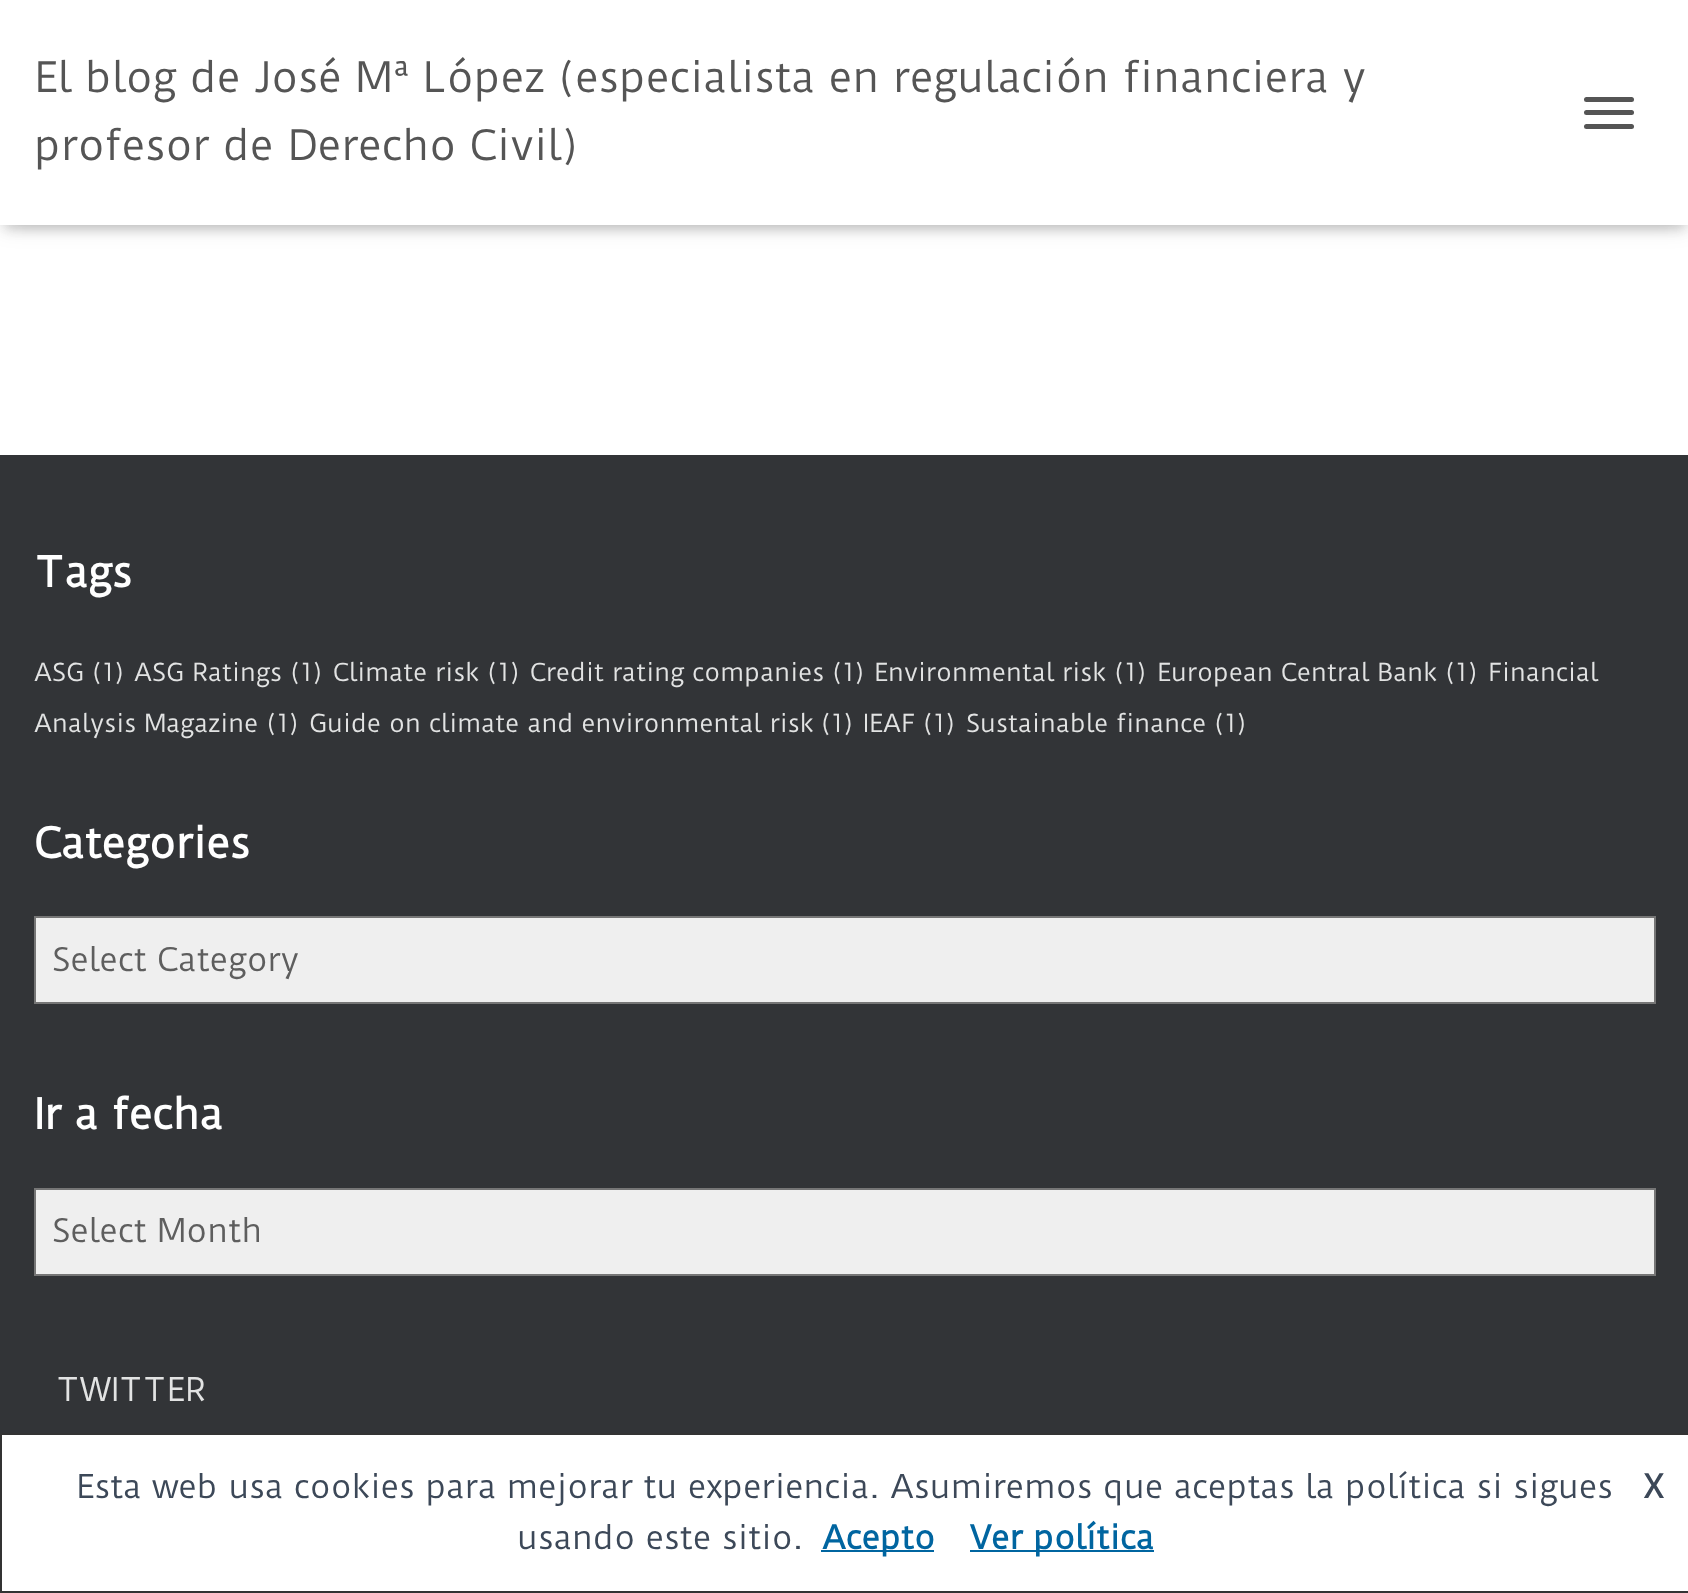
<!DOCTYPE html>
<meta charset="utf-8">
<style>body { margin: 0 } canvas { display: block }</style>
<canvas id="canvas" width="1688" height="1593"></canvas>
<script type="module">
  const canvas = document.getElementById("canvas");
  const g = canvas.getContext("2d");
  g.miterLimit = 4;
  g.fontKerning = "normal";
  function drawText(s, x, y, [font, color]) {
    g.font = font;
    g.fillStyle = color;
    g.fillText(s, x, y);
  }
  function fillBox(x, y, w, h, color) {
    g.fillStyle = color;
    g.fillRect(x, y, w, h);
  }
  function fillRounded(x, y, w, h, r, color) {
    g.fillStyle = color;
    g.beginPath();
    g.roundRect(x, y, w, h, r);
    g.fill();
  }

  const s1 = ["40.5px Duru Sans", "#555555"];
  const s2 = ["bold 40.5px Duru Sans", "#FFFFFF"];
  const s3 = ["24px Duru Sans", "#E2E3E3"];
  const s4 = ["31.5px Duru Sans", "#5E5E5E"];
  const s5 = ["31.5px Duru Sans", "#E2E3E3"];
  const s6 = ["31.5px Duru Sans", "#3C4858"];
  const s7 = ["bold 31.5px Duru Sans", "#3C4858"];
  const s8 = ["bold 31.5px Duru Sans", "#0065A0"];

  fillBox(0, 0, 1688, 1593, "#323437");
  fillBox(0, 225, 1688, 230, "#FFFFFF");
  g.fillStyle = "rgba(0, 0, 0, 0.1)";
  g.filter = "blur(5.5px)";
  g.beginPath();
  g.rect(5, 14, 1680, 216);
  g.fill();
  g.filter = "none";
  g.fillStyle = "rgba(0, 0, 0, 0.12)";
  g.filter = "blur(11px)";
  g.beginPath();
  g.rect(0, 2, 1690, 225);
  g.fill();
  g.filter = "none";
  g.fillStyle = "rgba(0, 0, 0, 0.42)";
  g.filter = "blur(11px)";
  g.beginPath();
  g.rect(14, 16, 1662, 198);
  g.fill();
  g.filter = "none";
  fillBox(0, 0, 1688, 225, "#FFFFFF");
  drawText("El blog de José Mª López (especialista en regulación financiera y", 34, 92, s1);
  drawText("profesor de Derecho Civil)", 34, 160, s1);
  fillRounded(1584, 97, 50, 5, 2.5, "#555555");
  fillRounded(1584, 110, 50, 5, 2.5, "#555555");
  fillRounded(1584, 124, 50, 5, 2.5, "#555555");
  drawText("Tags", 34, 587, s2);
  drawText("ASG (1)", 34, 681, s3);
  drawText("ASG Ratings (1)", 134, 681, s3);
  drawText("Climate risk (1)", 333, 681, s3);
  drawText("Credit rating companies (1)", 530, 681, s3);
  drawText("Environmental risk (1)", 874, 681, s3);
  drawText("European Central Bank (1)", 1157, 681, s3);
  drawText("Financial", 1488, 681, s3);
  drawText("Analysis Magazine (1)", 34, 732, s3);
  drawText("Guide on climate and environmental risk", 309, 732, s3);
  drawText("(1)", 821, 732, s3);
  drawText("IEAF (1)", 863, 732, s3);
  drawText("Sustainable finance (1)", 966, 732, s3);
  drawText("Categories", 34, 858, s2);
  g.fillStyle = "#EFEFEF";
  g.beginPath();
  g.rect(35, 917, 1620, 86);
  g.fill();
  g.strokeStyle = "#767676";
  g.lineWidth = 2;
  g.stroke();
  drawText("Select Category", 52, 971, s4);
  drawText("Ir a fecha", 34, 1129, s2);
  g.fillStyle = "#EFEFEF";
  g.beginPath();
  g.rect(35, 1189, 1620, 86);
  g.fill();
  g.stroke();
  drawText("Select Month", 52, 1242, s4);
  drawText("TWITTER", 56, 1401, s5);
  g.fillStyle = "#FFFFFF";
  g.beginPath();
  g.rect(1, 1434, 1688, 158);
  g.fill();
  g.strokeStyle = "#333333";
  g.stroke();
  drawText("Esta web usa cookies para mejorar tu experiencia. Asumiremos que aceptas la política si sigues", 76, 1498, s6);
  drawText("X", 1643, 1498, s7);
  drawText("usando este sitio.", 517, 1549, s6);
  fillBox(821, 1550, 113, 2, "#0065A0");
  drawText("Acepto", 822, 1549, s8);
  fillBox(970, 1550, 184, 2, "#0065A0");
  drawText("Ver política", 970, 1549, s8);
</script>
